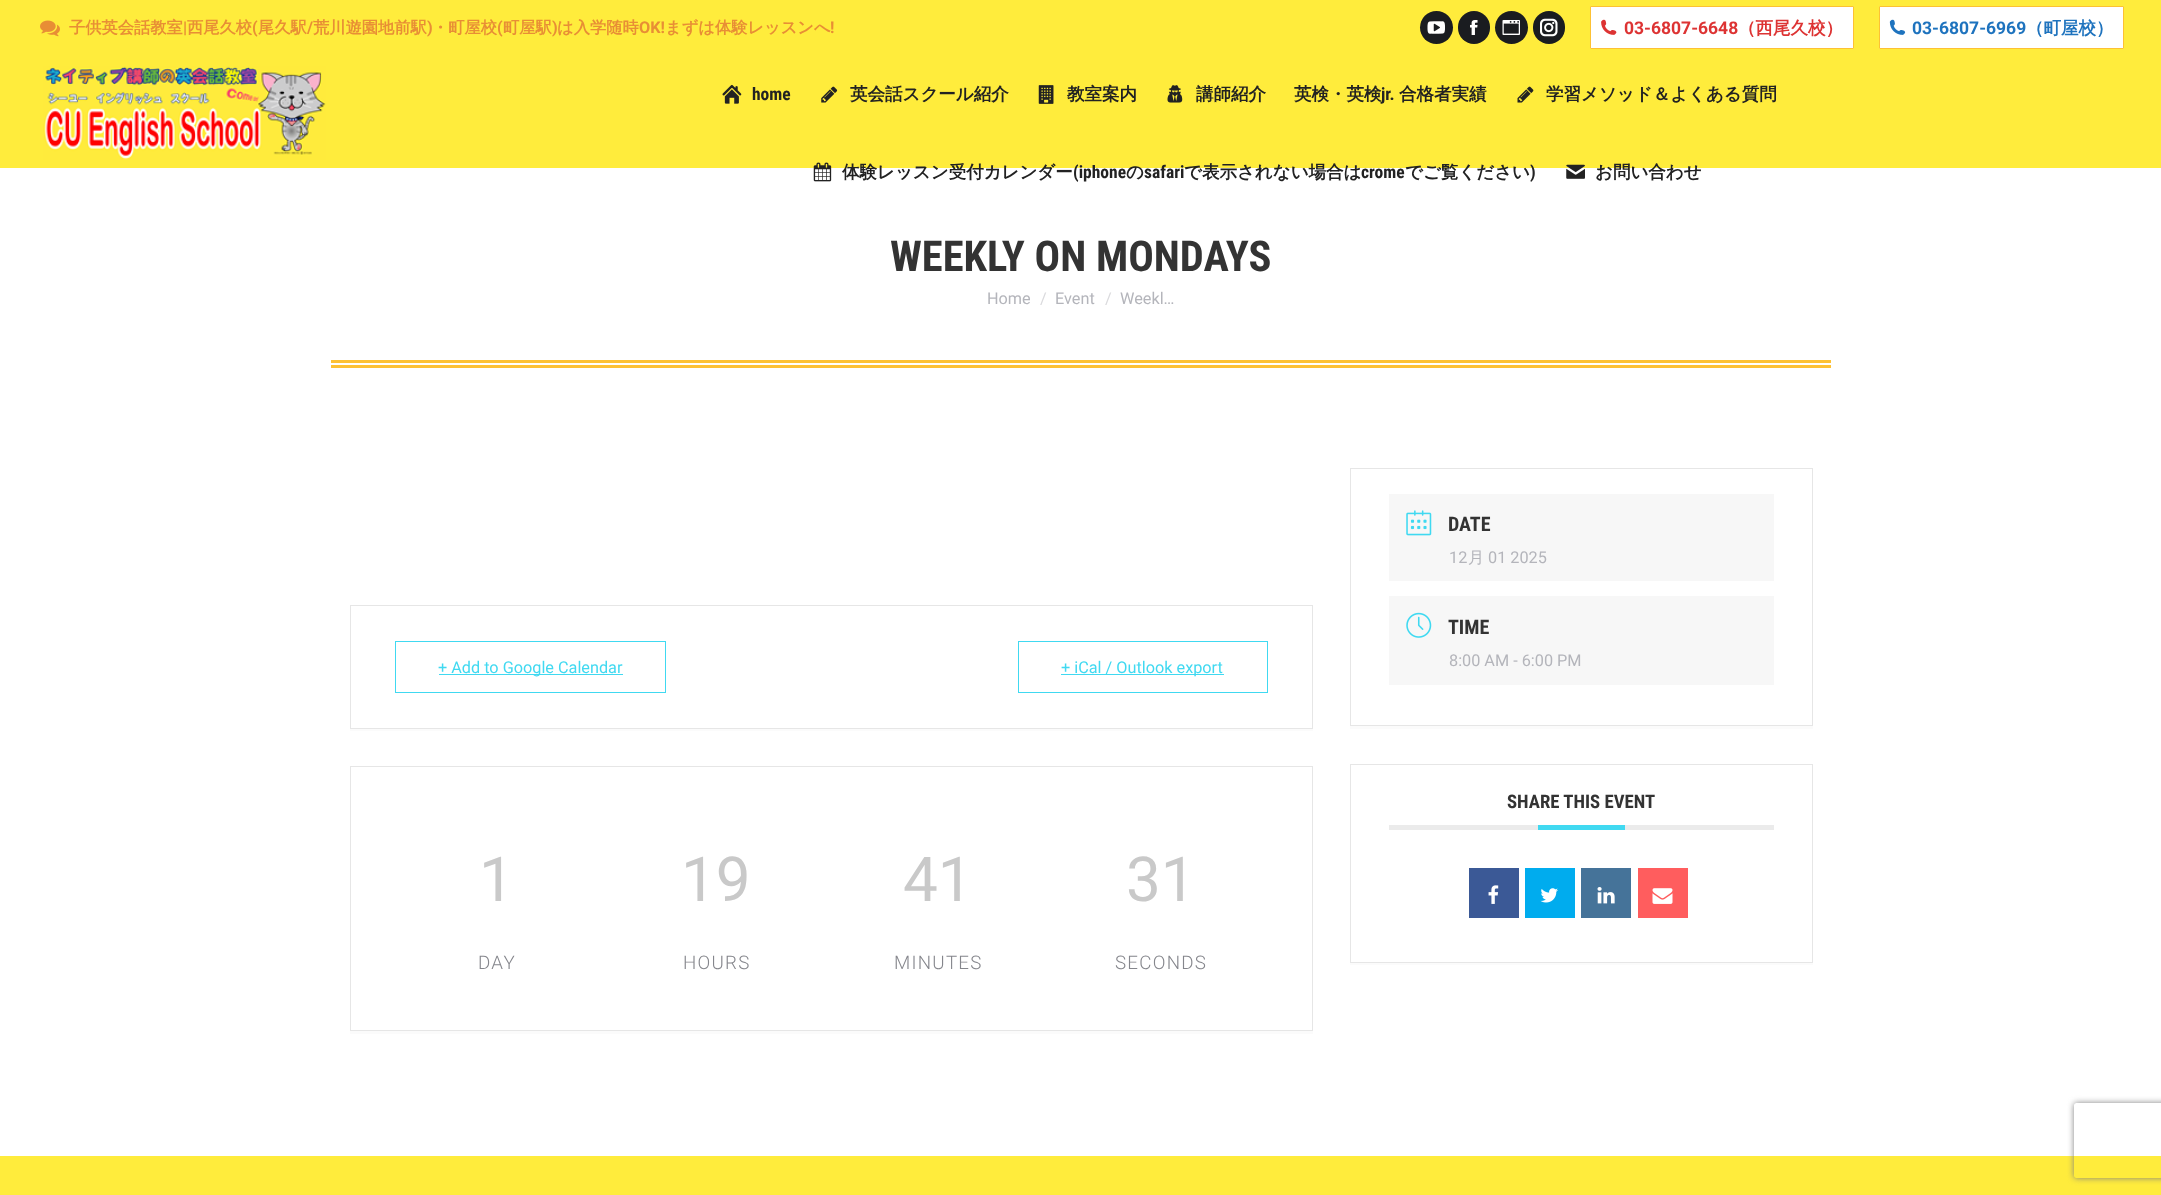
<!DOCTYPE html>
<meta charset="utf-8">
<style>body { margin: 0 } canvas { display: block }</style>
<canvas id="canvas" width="2161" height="1195"></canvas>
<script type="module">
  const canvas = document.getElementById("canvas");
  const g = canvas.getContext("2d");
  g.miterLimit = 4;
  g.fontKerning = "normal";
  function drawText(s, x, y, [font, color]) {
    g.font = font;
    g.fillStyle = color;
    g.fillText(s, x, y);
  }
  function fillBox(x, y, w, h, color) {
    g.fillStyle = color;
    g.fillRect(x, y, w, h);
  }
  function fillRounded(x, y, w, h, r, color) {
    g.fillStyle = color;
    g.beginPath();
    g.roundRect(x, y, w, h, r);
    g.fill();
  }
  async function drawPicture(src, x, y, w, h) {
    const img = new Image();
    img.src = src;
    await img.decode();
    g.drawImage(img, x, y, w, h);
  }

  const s1 = ["bold 16.25px WenQuanYi Zen Hei", "#E88E35"];
  const s2 = ["bold 16.25px Roboto", "#E88E35"];
  const s3 = ["bold 17.5px Roboto", "#DD3333"];
  const s4 = ["bold 17.5px WenQuanYi Zen Hei", "#DD3333"];
  const s5 = ["bold 17.5px Roboto", "#1E73BE"];
  const s6 = ["bold 17.5px WenQuanYi Zen Hei", "#1E73BE"];
  const s7 = ["bold 17.5px Roboto Condensed", "#222222"];
  const s8 = ["bold 17.5px WenQuanYi Zen Hei", "#222222"];
  const s9 = ["bold 42.5px Roboto Condensed", "#333333"];
  const s10 = ["16.25px Roboto", "#B4B5BB"];
  const s11 = ["16.25px Roboto", "#DADADD"];
  const s12 = ["16.25px Roboto", "#40D9F1"];
  const s13 = ["62px Roboto", "#C9C9C9"];
  const s14 = ["300 18.75px Roboto", "#85868C"];
  const s15 = ["bold 20px Roboto Condensed", "#333333"];
  const s16 = ["500 16.25px WenQuanYi Zen Hei", "#B4B5BB"];
  const s17 = ["bold 18.75px Roboto Condensed", "#333333"];

  fillBox(0, 0, 2161, 1195, "#FFFFFF");
  fillBox(0, 0, 2161, 168, "#FFEC3C");
  await drawPicture("pic1.png", 40, 20, 20, 17);
  drawText("子供英会話教室", 69, 33, s1);
  drawText("|", 183, 33, s2);
  drawText("西尾久校", 187, 33, s1);
  drawText("(", 252, 33, s2);
  drawText("尾久駅", 258, 33, s1);
  drawText("/", 307, 33, s2);
  drawText("荒川遊園地前駅", 313, 33, s1);
  drawText(")", 427, 33, s2);
  drawText("・町屋校", 432, 33, s1);
  drawText("(", 497, 33, s2);
  drawText("町屋駅", 503, 33, s1);
  drawText(")", 552, 33, s2);
  drawText("は入学随時", 557, 33, s1);
  drawText("OK!", 639, 33, s2);
  drawText("まずは体験レッスンへ", 665, 33, s1);
  drawText("!", 830, 33, s2);
  g.fillStyle = "#1A1C20";
  g.beginPath();
  g.arc(1436.5, 27.5, 16.5, 0, Math.PI * 2);
  g.fill();
  await drawPicture("pic2.png", 1427, 21, 18, 13);
  fillRounded(1458, 11, 32, 33, 16, "#1A1C20");
  await drawPicture("pic3.png", 1470, 20, 8, 15);
  g.beginPath();
  g.arc(1511.5, 27.5, 16.5, 0, Math.PI * 2);
  g.fill();
  await drawPicture("pic4.png", 1502, 20, 18, 15);
  fillRounded(1533, 11, 32, 33, 16, "#1A1C20");
  await drawPicture("pic5.png", 1540, 18, 18, 19);
  g.fillStyle = "#FFFFFF";
  g.beginPath();
  g.roundRect(1590.5, 6.5, 263, 42, 0.5);
  g.fill();
  g.strokeStyle = "#FDC134";
  g.stroke();
  await drawPicture("pic6.png", 1601, 19, 16, 16);
  drawText("03-6807-6648", 1624, 34, s3);
  drawText("（西尾久校）", 1738, 34, s4);
  g.fillStyle = "#FFFFFF";
  g.beginPath();
  g.roundRect(1879.5, 6.5, 244, 42, 0.5);
  g.fill();
  g.stroke();
  await drawPicture("pic7.png", 1889, 19, 17, 16);
  drawText("03-6807-6969", 1912, 34, s5);
  drawText("（町屋校）", 2026, 34, s6);
  await drawPicture("pic8.png", 43, 66, 283, 94);
  await drawPicture("pic9.png", 722, 84, 20, 20);
  drawText("home", 752, 100, s7);
  await drawPicture("pic10.png", 821, 86, 17, 17);
  drawText("英会話スクール紹介", 850, 100, s8);
  await drawPicture("pic11.png", 1038, 85, 16, 19);
  drawText("教室案内", 1067, 100, s8);
  await drawPicture("pic12.png", 1167, 85, 16, 18);
  drawText("講師紹介", 1196, 100, s8);
  drawText("英検・英検", 1294, 100, s8);
  drawText("jr.", 1381, 100, s7);
  drawText("合格者実績", 1399, 100, s8);
  await drawPicture("pic13.png", 1517, 86, 17, 17);
  drawText("学習メソッド＆よくある質問", 1546, 100, s8);
  await drawPicture("pic14.png", 813, 162, 19, 20);
  drawText("体験レッスン受付カレンダー", 842, 178, s8);
  drawText("(iphone", 1073, 178, s7);
  drawText("の", 1126, 178, s8);
  drawText("safari", 1144, 178, s7);
  drawText("で表示されない場合は", 1184, 178, s8);
  drawText("crome", 1361, 178, s7);
  drawText("でご覧ください", 1405, 178, s8);
  drawText(")", 1530, 178, s7);
  await drawPicture("pic15.png", 1566, 164, 19, 15);
  drawText("お問い合わせ", 1595, 178, s8);
  drawText("WEEKLY ON MONDAYS", 890, 271, s9);
  drawText("Home", 987, 304, s10);
  drawText("/", 1040, 304, s11);
  drawText("Event", 1055, 304, s10);
  drawText("/", 1105, 304, s11);
  drawText("Weekl…", 1120, 304, s10);
  fillBox(331, 360, 1500, 3, "#FDC134");
  fillBox(331, 365, 1500, 3, "#FDC134");
  g.fillStyle = "#FBFBFB";
  g.beginPath();
  g.moveTo(350, 729);
  g.lineTo(350, 731);
  g.lineTo(1313, 731);
  g.lineTo(1313, 608);
  g.lineTo(1312, 608);
  g.lineTo(1312, 729);
  g.closePath();
  g.fill();
  g.strokeStyle = "#E6E6E6";
  g.strokeRect(350.5, 605.5, 962, 123);
  g.strokeStyle = "#40D9F1";
  g.strokeRect(395.5, 641.5, 270, 51);
  fillBox(439, 674, 184, 1, "#40D9F1");
  drawText("+ Add to Google Calendar", 438, 673, s12);
  g.strokeRect(1018.5, 641.5, 249, 51);
  fillBox(1061, 674, 163, 1, "#40D9F1");
  drawText("+ iCal / Outlook export", 1061, 673, s12);
  g.fillStyle = "#FBFBFB";
  g.beginPath();
  g.moveTo(350, 1031);
  g.lineTo(350, 1034);
  g.lineTo(1313, 1034);
  g.lineTo(1313, 769);
  g.lineTo(1312, 769);
  g.lineTo(1312, 1031);
  g.closePath();
  g.fill();
  g.strokeStyle = "#E6E6E6";
  g.strokeRect(350.5, 766.5, 962, 264);
  drawText("1", 479, 901, s13);
  g.letterSpacing = "1.25px";
  drawText("DAY", 478, 969, s14);
  g.letterSpacing = "0px";
  drawText("19", 681, 901, s13);
  g.letterSpacing = "1.25px";
  drawText("HOURS", 683, 969, s14);
  g.letterSpacing = "0px";
  drawText("41", 903, 901, s13);
  g.letterSpacing = "1.25px";
  drawText("MINUTES", 894, 969, s14);
  g.letterSpacing = "0px";
  drawText("31", 1126, 901, s13);
  g.letterSpacing = "1.25px";
  drawText("SECONDS", 1115, 969, s14);
  g.fillStyle = "#FBFBFB";
  g.beginPath();
  g.moveTo(1350, 726);
  g.lineTo(1350, 729);
  g.lineTo(1813, 729);
  g.lineTo(1813, 470);
  g.lineTo(1812, 470);
  g.lineTo(1812, 726);
  g.closePath();
  g.fill();
  g.strokeRect(1350.5, 468.5, 462, 257);
  fillBox(1389, 494, 385, 87, "#F7F7F7");
  await drawPicture("pic16.png", 1406, 510, 26, 26);
  g.letterSpacing = "0px";
  drawText("DATE", 1448, 531, s15);
  drawText("12", 1449, 563, s10);
  drawText("月", 1468, 563, s16);
  drawText("01 2025", 1488, 563, s10);
  fillBox(1389, 596, 385, 89, "#F7F7F7");
  await drawPicture("pic17.png", 1406, 612, 26, 26);
  drawText("TIME", 1448, 634, s15);
  drawText("8:00 AM - 6:00 PM", 1449, 666, s10);
  g.fillStyle = "#FBFBFB";
  g.beginPath();
  g.moveTo(1350, 962);
  g.lineTo(1350, 965);
  g.lineTo(1813, 965);
  g.lineTo(1813, 766);
  g.lineTo(1812, 766);
  g.lineTo(1812, 962);
  g.closePath();
  g.fill();
  g.strokeRect(1350.5, 764.5, 462, 198);
  fillBox(1389, 825, 385, 5, "#EBEBEB");
  drawText("SHARE THIS EVENT", 1507, 808, s17);
  fillBox(1538, 825, 87, 5, "#40D9F1");
  fillBox(1469, 868, 50, 50, "#3B5996");
  await drawPicture("pic18.png", 1488, 885, 11, 19);
  fillBox(1525, 868, 50, 50, "#00ACEE");
  await drawPicture("pic19.png", 1540, 888, 18, 15);
  fillBox(1581, 868, 50, 50, "#457399");
  await drawPicture("pic20.png", 1597, 887, 18, 17);
  fillBox(1638, 868, 50, 50, "#FF5D5E");
  await drawPicture("pic21.png", 1652, 888, 21, 16);
  fillBox(0, 1156, 2161, 39, "#FFEC3C");
  g.save();
  g.beginPath();
  g.moveTo(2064, 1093);
  g.lineTo(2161, 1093);
  g.lineTo(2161, 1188);
  g.lineTo(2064, 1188);
  g.closePath();
  g.moveTo(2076.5, 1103);
  g.lineTo(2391.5, 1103);
  g.bezierCurveTo(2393, 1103, 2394, 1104, 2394, 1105.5);
  g.lineTo(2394, 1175.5);
  g.bezierCurveTo(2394, 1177, 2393, 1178, 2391.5, 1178);
  g.lineTo(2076.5, 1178);
  g.bezierCurveTo(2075, 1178, 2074, 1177, 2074, 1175.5);
  g.lineTo(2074, 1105.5);
  g.bezierCurveTo(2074, 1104, 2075, 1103, 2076.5, 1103);
  g.closePath();
  g.clip("evenodd");
  g.fillStyle = "#808080";
  g.filter = "blur(3px)";
  g.beginPath();
  g.roundRect(2074, 1103, 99, 75, 2.5);
  g.fill();
  g.filter = "none";
  g.restore();
</script>
